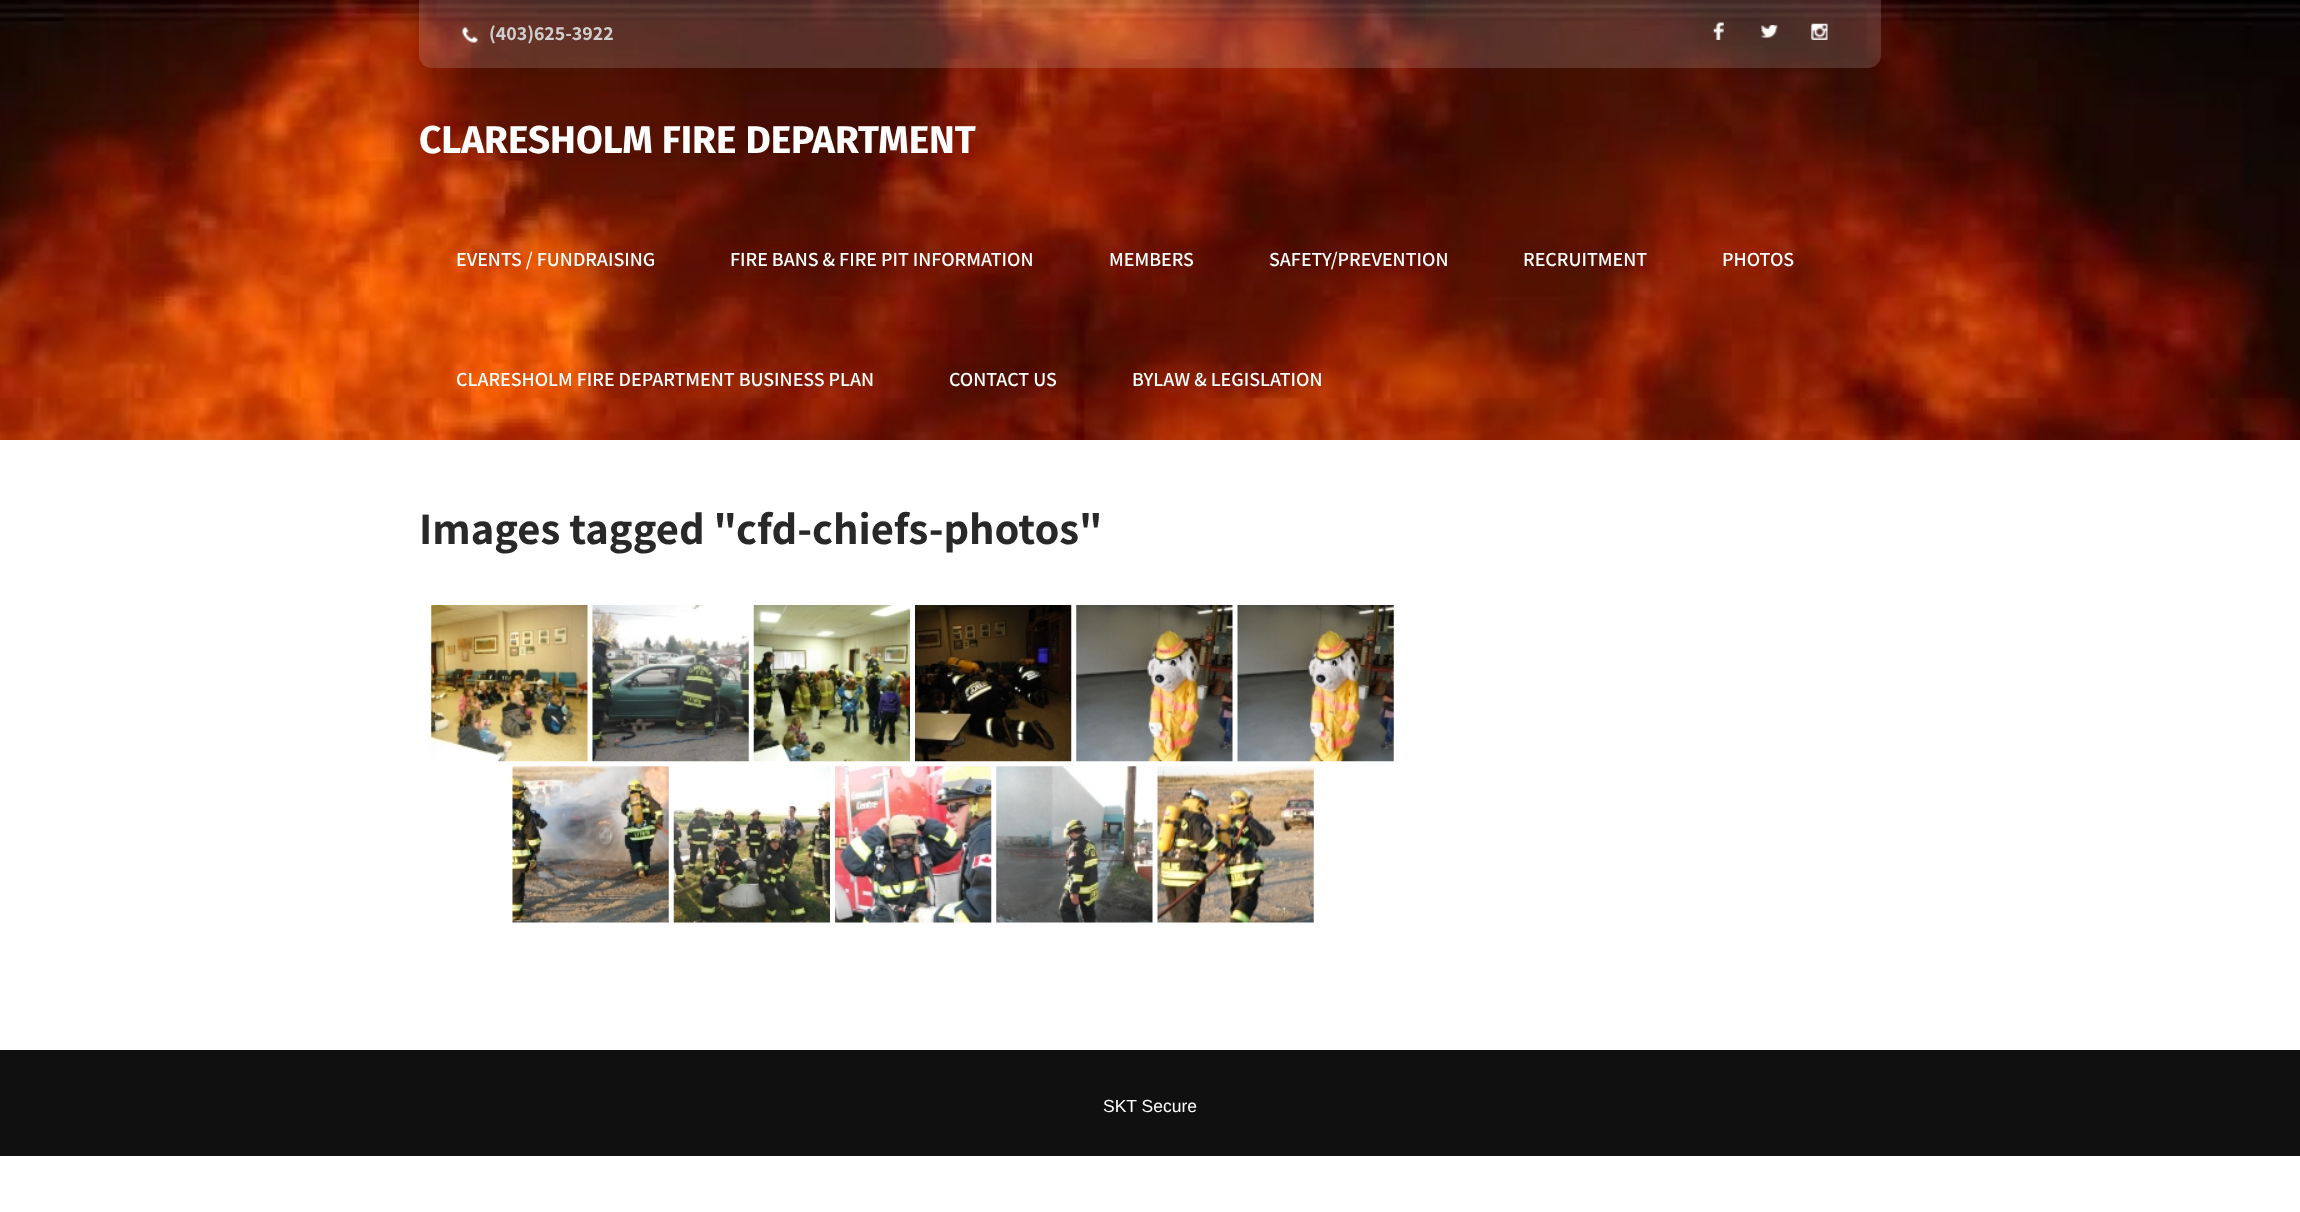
<!DOCTYPE html>
<meta charset="utf-8">
<style>body { margin: 0 } canvas { display: block }</style>
<canvas id="canvas" width="2300" height="1212"></canvas>
<script type="module">
  const canvas = document.getElementById("canvas");
  const g = canvas.getContext("2d");
  g.miterLimit = 4;
  g.fontKerning = "normal";
  function drawText(s, x, y, [font, color]) {
    g.font = font;
    g.fillStyle = color;
    g.fillText(s, x, y);
  }
  function fillBox(x, y, w, h, color) {
    g.fillStyle = color;
    g.fillRect(x, y, w, h);
  }
  async function drawPicture(src, x, y, w, h) {
    const img = new Image();
    img.src = src;
    await img.decode();
    g.drawImage(img, x, y, w, h);
  }

  const s1 = ["bold 20px Assistant", "#CFCECE"];
  const s2 = ["bold 38.75px Fira Sans", "#FFFFFF"];
  const s3 = ["600 20px Assistant", "#FFFFFF"];
  const s4 = ["bold 45px Assistant", "#282828"];
  const s5 = ["17.5px Liberation Sans", "#FFFFFF"];

  fillBox(0, 0, 2300, 1212, "#FFFFFF");
  await drawPicture("pic1.png", 0, 0, 2300, 440);
  g.fillStyle = "rgba(255, 255, 255, 0.15)";
  g.beginPath();
  g.roundRect(419, 0, 1462, 68, [0, 0, 13, 13]);
  g.fill();
  await drawPicture("pic2.png", 462, 27, 16, 16);
  drawText("(403)625-3922", 489, 40, s1);
  await drawPicture("pic3.png", 1713, 22, 11, 18);
  await drawPicture("pic4.png", 1761, 25, 17, 13);
  await drawPicture("pic5.png", 1811, 23, 17, 17);
  drawText("CLARESHOLM FIRE DEPARTMENT", 419, 153, s2);
  drawText("EVENTS / FUNDRAISING", 456, 266, s3);
  drawText("FIRE BANS & FIRE PIT INFORMATION", 730, 266, s3);
  drawText("MEMBERS", 1109, 266, s3);
  drawText("SAFETY/PREVENTION", 1269, 266, s3);
  drawText("RECRUITMENT", 1523, 266, s3);
  drawText("PHOTOS", 1722, 266, s3);
  drawText("CLARESHOLM FIRE DEPARTMENT BUSINESS PLAN", 456, 386, s3);
  drawText("CONTACT US", 949, 386, s3);
  drawText("BYLAW & LEGISLATION", 1132, 386, s3);
  drawText("Images tagged \"cfd-chiefs-photos\"", 419, 544, s4);
  await drawPicture("pic6.png", 431, 605, 157, 157);
  await drawPicture("pic7.png", 592, 605, 157, 157);
  await drawPicture("pic8.png", 753, 605, 157, 157);
  await drawPicture("pic9.png", 915, 605, 157, 157);
  await drawPicture("pic10.png", 1076, 605, 157, 157);
  await drawPicture("pic11.png", 1237, 605, 157, 157);
  await drawPicture("pic12.png", 512, 766, 157, 157);
  await drawPicture("pic13.png", 673, 766, 157, 157);
  await drawPicture("pic14.png", 835, 766, 157, 157);
  await drawPicture("pic15.png", 996, 766, 157, 157);
  await drawPicture("pic16.png", 1157, 766, 157, 157);
  fillBox(0, 1050, 2300, 106, "#101010");
  drawText("SKT Secure", 1103, 1112, s5);
</script>
